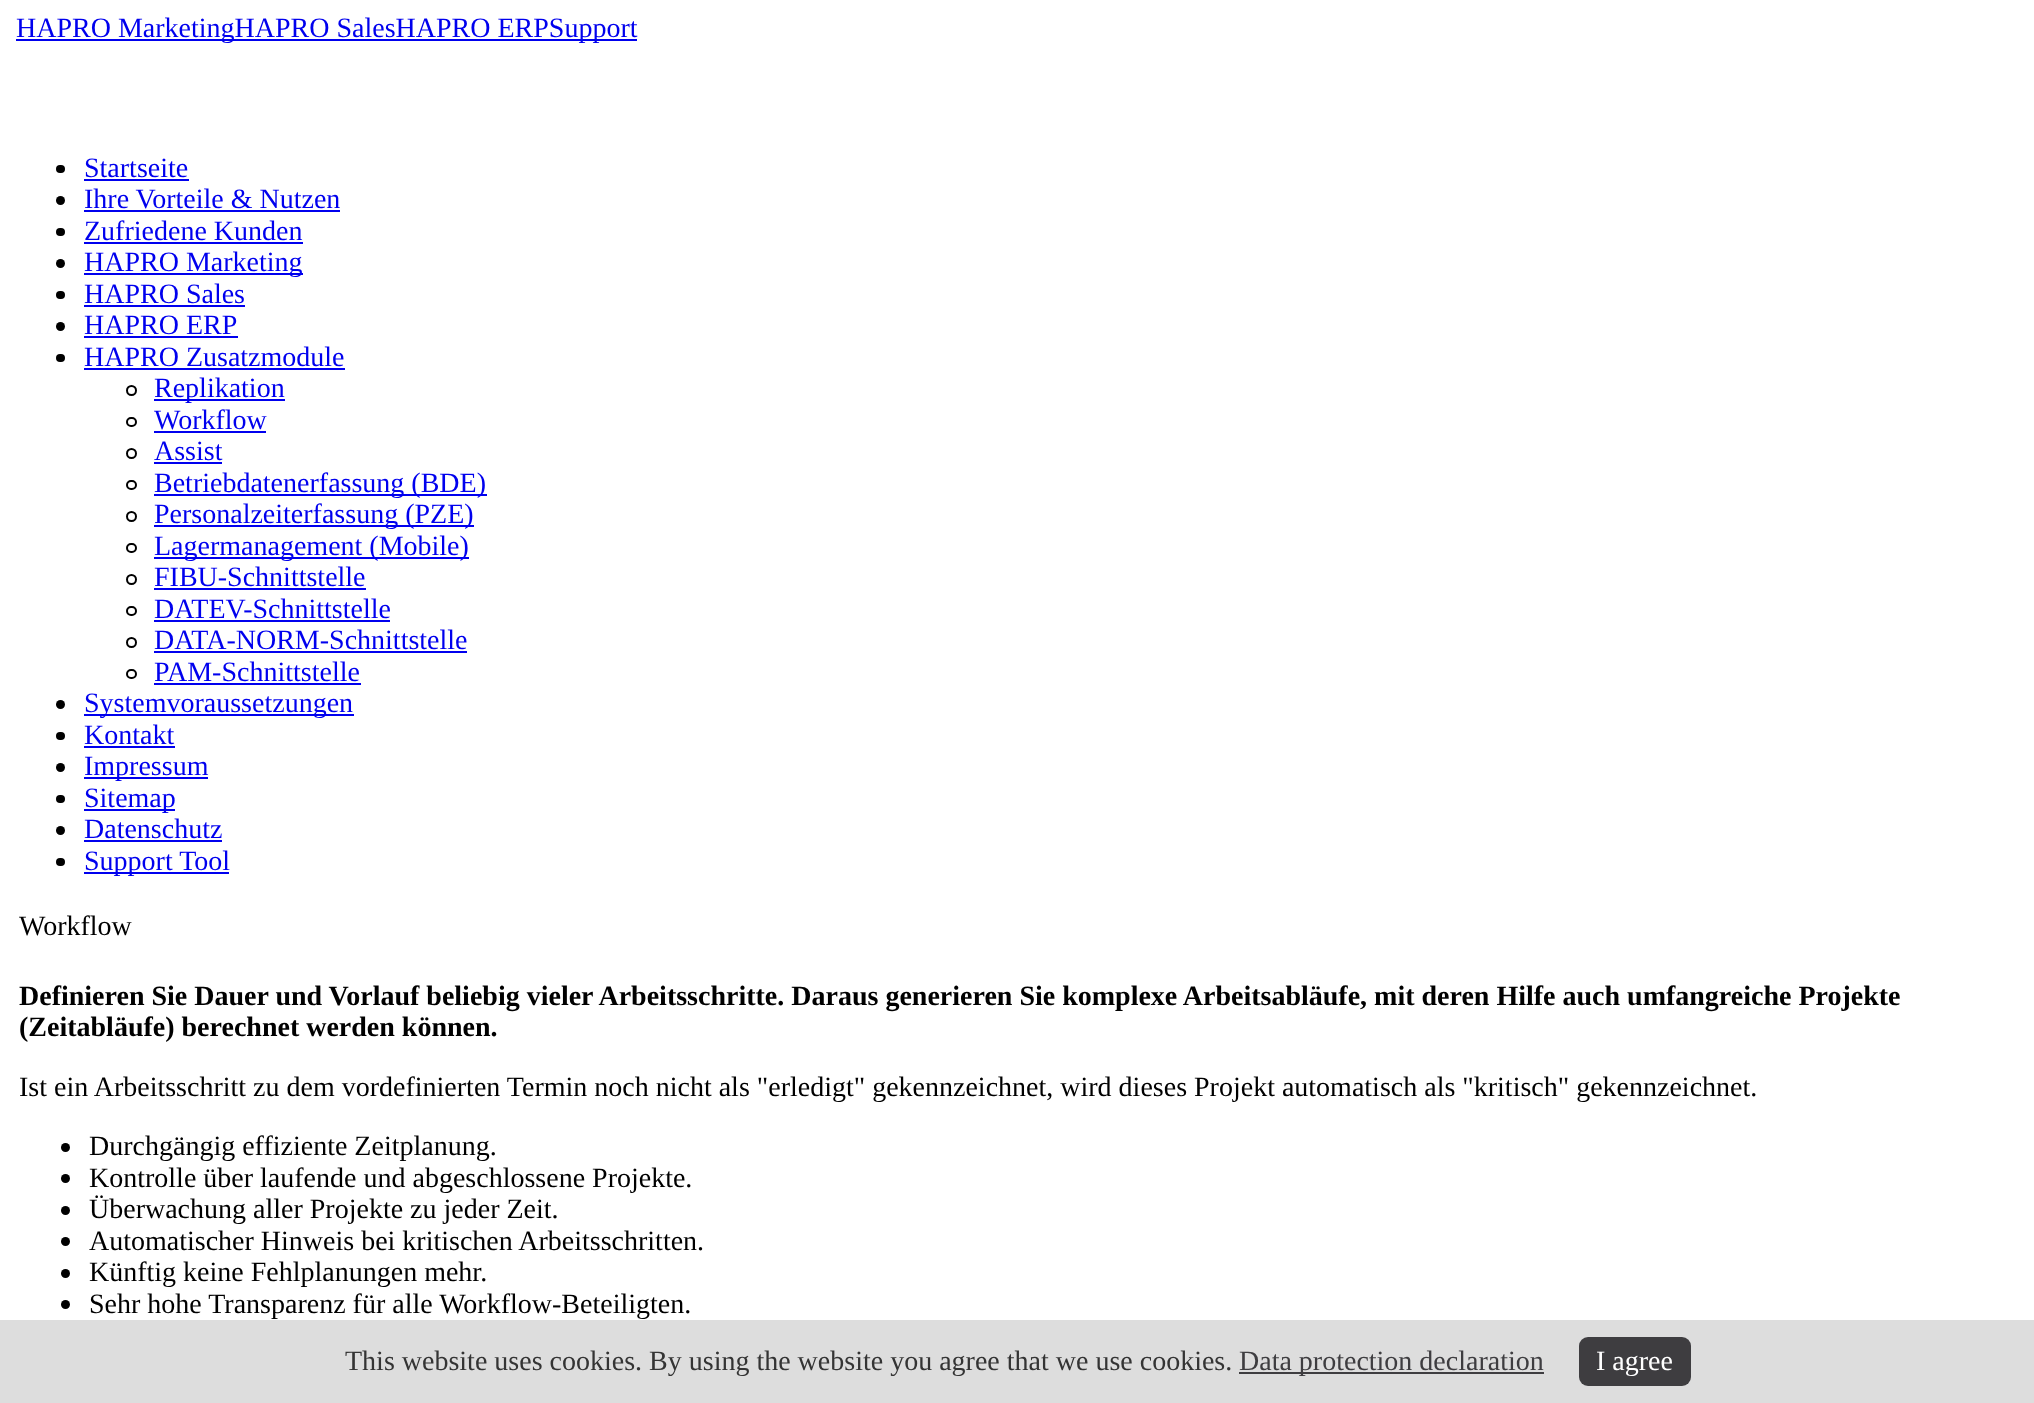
<!DOCTYPE html>
<meta charset="utf-8">
<style>body { margin: 0 } canvas { display: block }</style>
<canvas id="canvas" width="2034" height="1403"></canvas>
<script type="module">
  const canvas = document.getElementById("canvas");
  const g = canvas.getContext("2d");
  g.miterLimit = 4;
  g.fontKerning = "normal";
  function drawText(s, x, y, [font, color]) {
    g.font = font;
    g.fillStyle = color;
    g.fillText(s, x, y);
  }
  function fillBox(x, y, w, h, color) {
    g.fillStyle = color;
    g.fillRect(x, y, w, h);
  }
  function fillRounded(x, y, w, h, r, color) {
    g.fillStyle = color;
    g.beginPath();
    g.roundRect(x, y, w, h, r);
    g.fill();
  }

  const s1 = ["28px Liberation Serif", "#0000EE"];
  const s2 = ["28px Liberation Serif", "#000000"];
  const s3 = ["bold 28px Liberation Serif", "#000000"];
  const s4 = ["28px Liberation Serif", "#343434"];
  const s5 = ["28px Liberation Serif", "#3E3D40"];
  const s6 = ["28px Liberation Serif", "#FFFFFF"];

  fillBox(0, 0, 2034, 1403, "#FFFFFF");
  fillBox(16, 39, 621, 2, "#0000EE");
  drawText("HAPRO MarketingHAPRO SalesHAPRO ERPSupport", 16, 37, s1);
  fillRounded(56, 165, 9, 8, 4, "#000000");
  drawText("Startseite", 84, 177, s1);
  fillBox(84, 179, 105, 2, "#0000EE");
  g.fillStyle = "#000000";
  g.beginPath();
  g.arc(60.5, 200.5, 4.5, 0, Math.PI * 2);
  g.fill();
  drawText("Ihre Vorteile & Nutzen", 84, 208, s1);
  fillBox(84, 210, 256, 2, "#0000EE");
  fillRounded(56, 228, 9, 8, 4, "#000000");
  drawText("Zufriedene Kunden", 84, 240, s1);
  fillBox(84, 242, 219, 2, "#0000EE");
  g.fillStyle = "#000000";
  g.beginPath();
  g.arc(60.5, 263.5, 4.5, 0, Math.PI * 2);
  g.fill();
  fillBox(84, 273, 219, 2, "#0000EE");
  drawText("HAPRO Marketing", 84, 271, s1);
  fillRounded(56, 291, 9, 8, 4, "#000000");
  drawText("HAPRO Sales", 84, 303, s1);
  fillBox(84, 305, 161, 2, "#0000EE");
  g.fillStyle = "#000000";
  g.beginPath();
  g.arc(60.5, 326.5, 4.5, 0, Math.PI * 2);
  g.fill();
  drawText("HAPRO ERP", 84, 334, s1);
  fillBox(84, 336, 154, 2, "#0000EE");
  fillRounded(56, 354, 9, 8, 4, "#000000");
  drawText("HAPRO Zusatzmodule", 84, 366, s1);
  fillBox(84, 368, 261, 2, "#0000EE");
  g.beginPath();
  g.arc(131.5, 390.5, 4.5, 0, Math.PI * 2);
  g.strokeStyle = "#000000";
  g.lineWidth = 2;
  g.stroke();
  fillBox(154, 399, 131, 2, "#0000EE");
  drawText("Replikation", 154, 397, s1);
  g.beginPath();
  g.roundRect(127, 418, 9, 8, 4);
  g.stroke();
  drawText("Workflow", 154, 429, s1);
  fillBox(154, 431, 112, 2, "#0000EE");
  g.beginPath();
  g.arc(131.5, 453.5, 4.5, 0, Math.PI * 2);
  g.stroke();
  drawText("Assist", 154, 460, s1);
  fillBox(154, 462, 68, 2, "#0000EE");
  g.beginPath();
  g.roundRect(127, 481, 9, 8, 4);
  g.stroke();
  fillBox(154, 494, 333, 2, "#0000EE");
  drawText("Betriebdatenerfassung (BDE)", 154, 492, s1);
  g.beginPath();
  g.arc(131.5, 516.5, 4.5, 0, Math.PI * 2);
  g.stroke();
  fillBox(154, 525, 320, 2, "#0000EE");
  drawText("Personalzeiterfassung (PZE)", 154, 523, s1);
  g.beginPath();
  g.roundRect(127, 544, 9, 8, 4);
  g.stroke();
  fillBox(154, 557, 315, 2, "#0000EE");
  drawText("Lagermanagement (Mobile)", 154, 555, s1);
  g.beginPath();
  g.arc(131.5, 579.5, 4.5, 0, Math.PI * 2);
  g.stroke();
  drawText("FIBU-Schnittstelle", 154, 586, s1);
  fillBox(154, 588, 212, 2, "#0000EE");
  g.beginPath();
  g.roundRect(127, 607, 9, 8, 4);
  g.stroke();
  drawText("DATEV-Schnittstelle", 154, 618, s1);
  fillBox(154, 620, 236, 2, "#0000EE");
  g.beginPath();
  g.arc(131.5, 642.5, 4.5, 0, Math.PI * 2);
  g.stroke();
  drawText("DATA-NORM-Schnittstelle", 154, 649, s1);
  fillBox(154, 651, 313, 2, "#0000EE");
  g.beginPath();
  g.roundRect(127, 670, 9, 8, 4);
  g.stroke();
  drawText("PAM-Schnittstelle", 154, 681, s1);
  fillBox(154, 683, 207, 2, "#0000EE");
  g.fillStyle = "#000000";
  g.beginPath();
  g.arc(60.5, 704.5, 4.5, 0, Math.PI * 2);
  g.fill();
  fillBox(84, 714, 270, 2, "#0000EE");
  drawText("Systemvoraussetzungen", 84, 712, s1);
  fillRounded(56, 732, 9, 8, 4, "#000000");
  drawText("Kontakt", 84, 744, s1);
  fillBox(84, 746, 91, 2, "#0000EE");
  g.fillStyle = "#000000";
  g.beginPath();
  g.arc(60.5, 767.5, 4.5, 0, Math.PI * 2);
  g.fill();
  fillBox(84, 777, 124, 2, "#0000EE");
  drawText("Impressum", 84, 775, s1);
  fillRounded(56, 795, 9, 8, 4, "#000000");
  fillBox(84, 809, 91, 2, "#0000EE");
  drawText("Sitemap", 84, 807, s1);
  g.fillStyle = "#000000";
  g.beginPath();
  g.arc(60.5, 830.5, 4.5, 0, Math.PI * 2);
  g.fill();
  drawText("Datenschutz", 84, 838, s1);
  fillBox(84, 840, 138, 2, "#0000EE");
  fillRounded(56, 858, 9, 8, 4, "#000000");
  fillBox(84, 872, 145, 2, "#0000EE");
  drawText("Support Tool", 84, 870, s1);
  drawText("Workflow", 19, 935, s2);
  drawText("Definieren Sie Dauer und Vorlauf beliebig vieler Arbeitsschritte. Daraus generieren Sie komplexe Arbeitsabläufe, mit deren Hilfe auch umfangreiche Projekte", 19, 1005, s3);
  drawText("(Zeitabläufe) berechnet werden können.", 19, 1036, s3);
  drawText("Ist ein Arbeitsschritt zu dem vordefinierten Termin noch nicht als \"erledigt\" gekennzeichnet, wird dieses Projekt automatisch als \"kritisch\" gekennzeichnet.", 19, 1096, s2);
  g.beginPath();
  g.arc(65.5, 1147.5, 4.5, 0, Math.PI * 2);
  g.fill();
  drawText("Durchgängig effiziente Zeitplanung.", 89, 1155, s2);
  g.beginPath();
  g.arc(65.5, 1178.5, 4.5, 0, Math.PI * 2);
  g.fill();
  drawText("Kontrolle über laufende und abgeschlossene Projekte.", 89, 1187, s2);
  g.beginPath();
  g.arc(65.5, 1210.5, 4.5, 0, Math.PI * 2);
  g.fill();
  drawText("Überwachung aller Projekte zu jeder Zeit.", 89, 1218, s2);
  g.beginPath();
  g.arc(65.5, 1241.5, 4.5, 0, Math.PI * 2);
  g.fill();
  drawText("Automatischer Hinweis bei kritischen Arbeitsschritten.", 89, 1250, s2);
  g.beginPath();
  g.arc(65.5, 1273.5, 4.5, 0, Math.PI * 2);
  g.fill();
  drawText("Künftig keine Fehlplanungen mehr.", 89, 1281, s2);
  g.beginPath();
  g.arc(65.5, 1304.5, 4.5, 0, Math.PI * 2);
  g.fill();
  drawText("Sehr hohe Transparenz für alle Workflow-Beteiligten.", 89, 1313, s2);
  fillBox(0, 1320, 2034, 83, "#DDDDDD");
  drawText("This website uses cookies. By using the website you agree that we use cookies.", 345, 1370, s4);
  fillBox(1239, 1372, 305, 2, "#3E3D40");
  drawText("Data protection declaration", 1239, 1370, s5);
  fillRounded(1579, 1337, 112, 49, 9, "#3E3D40");
  drawText("I agree", 1596, 1370, s6);
</script>
